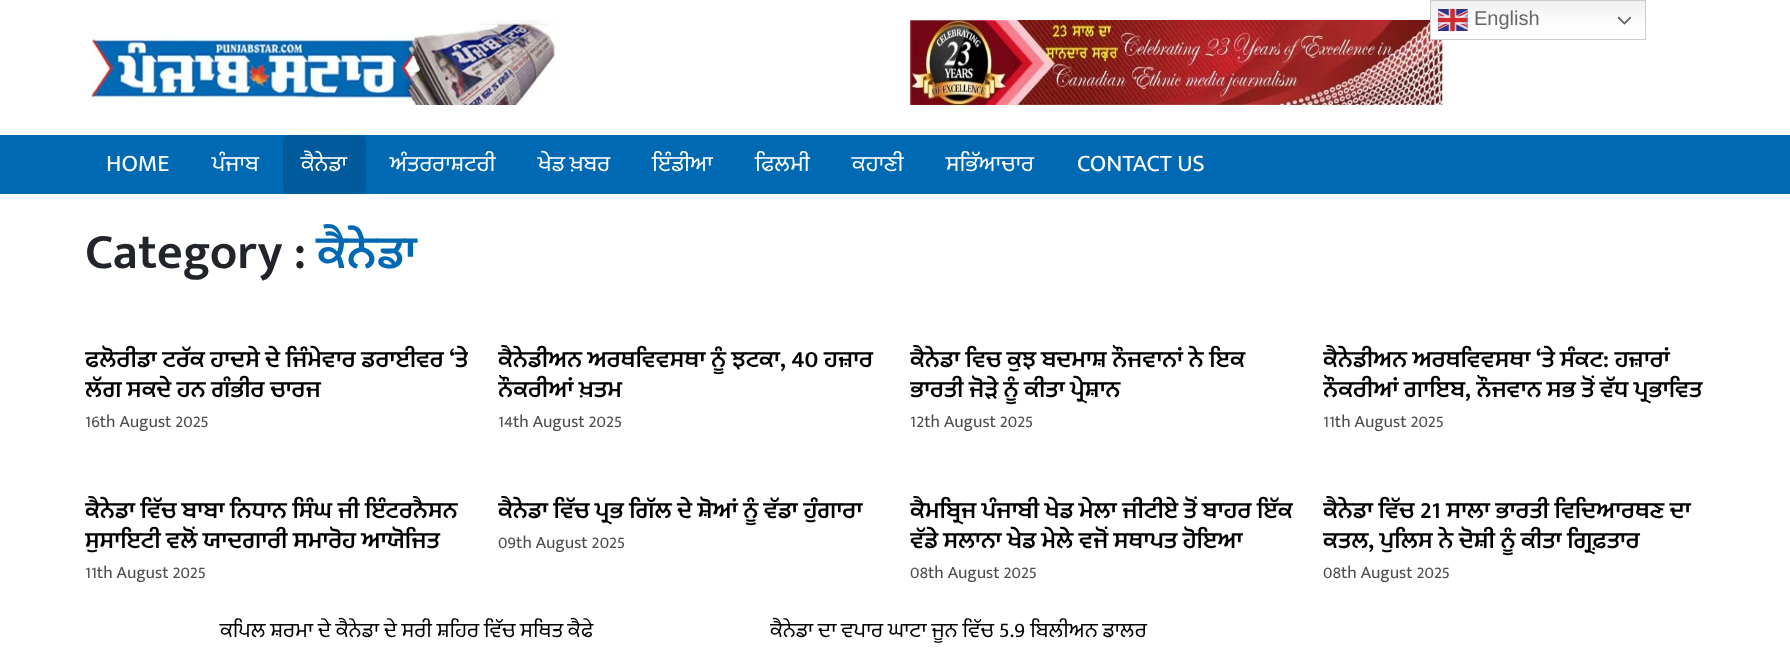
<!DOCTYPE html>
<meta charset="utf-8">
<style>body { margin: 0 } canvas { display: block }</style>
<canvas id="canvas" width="1790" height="653"></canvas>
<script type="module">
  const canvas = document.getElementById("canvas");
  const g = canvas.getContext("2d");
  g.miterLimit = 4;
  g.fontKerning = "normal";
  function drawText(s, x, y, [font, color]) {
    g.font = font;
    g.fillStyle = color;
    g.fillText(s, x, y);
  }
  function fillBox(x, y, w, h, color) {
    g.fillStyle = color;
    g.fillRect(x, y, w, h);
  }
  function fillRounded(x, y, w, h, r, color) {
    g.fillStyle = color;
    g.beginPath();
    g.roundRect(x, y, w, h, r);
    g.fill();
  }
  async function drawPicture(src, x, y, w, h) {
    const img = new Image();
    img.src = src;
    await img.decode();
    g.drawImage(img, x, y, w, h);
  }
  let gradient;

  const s1 = ["20px Liberation Sans", "#666666"];
  const s2 = ["24px Mukta Mahee", "#FFFFFF"];
  const s3 = ["600 50px Mukta Mahee", "#212529"];
  const s4 = ["600 50px Mukta Mahee", "#0069B4"];
  const s5 = ["600 25px Mukta Mahee", "#000000"];
  const s6 = ["17.5px Mukta Mahee", "#4D4D4D"];
  const s7 = ["22.5px Mukta Mahee", "#000000"];

  fillBox(0, 0, 1790, 653, "#FFFFFF");
  await drawPicture("pic1.png", 90, 20, 467, 85);
  await drawPicture("pic2.png", 910, 20, 533, 85);
  gradient = g.createLinearGradient(1538, 0, 1538, 40);
  gradient.addColorStop(0, "#EFEFEF");
  gradient.addColorStop(0.7, "#FFFFFF");
  g.fillStyle = gradient;
  g.fillRect(1431, 1, 214, 38);
  g.strokeStyle = "#CCCCCC";
  g.strokeRect(1430.5, 0.5, 215, 39);
  await drawPicture("pic3.png", 1438, 8, 30, 24);
  drawText("English", 1474, 25, s1);
  await drawPicture("pic4.png", 1618, 16, 13, 9);
  fillBox(0, 135, 1790, 59, "#0069B4");
  drawText("HOME", 106, 171, s2);
  drawText("ਪੰਜਾਬ", 212, 171, s2);
  fillRounded(283, 135, 83, 59, 6, "#005A9B");
  drawText("ਕੈਨੇਡਾ", 301, 171, s2);
  drawText("ਅੰਤਰਰਾਸ਼ਟਰੀ", 390, 171, s2);
  drawText("ਖੇਡ ਖ਼ਬਰ", 538, 171, s2);
  drawText("ਇੰਡੀਆ", 652, 171, s2);
  drawText("ਫਿਲਮੀ", 755, 171, s2);
  drawText("ਕਹਾਣੀ", 852, 171, s2);
  drawText("ਸਭਿੱਆਚਾਰ", 946, 171, s2);
  drawText("CONTACT US", 1077, 171, s2);
  drawText("Category :", 85, 268, s3);
  drawText("ਕੈਨੇਡਾ", 317, 268, s4);
  g.save();
  g.beginPath();
  g.rect(85, 345, 383, 60);
  g.clip();
  drawText("ਫਲੋਰੀਡਾ ਟਰੱਕ ਹਾਦਸੇ ਦੇ ਜਿੰਮੇਵਾਰ ਡਰਾਈਵਰ ‘ਤੇ", 85, 367, s5);
  drawText("ਲੱਗ ਸਕਦੇ ਹਨ ਗੰਭੀਰ ਚਾਰਜ", 85, 397, s5);
  g.restore();
  drawText("16th August 2025", 85, 427, s6);
  g.save();
  g.beginPath();
  g.rect(498, 345, 382, 60);
  g.clip();
  drawText("ਕੈਨੇਡੀਅਨ ਅਰਥਵਿਵਸਥਾ ਨੂੰ ਝਟਕਾ, 40 ਹਜ਼ਾਰ", 498, 367, s5);
  drawText("ਨੌਕਰੀਆਂ ਖ਼ਤਮ", 498, 397, s5);
  g.restore();
  drawText("14th August 2025", 498, 427, s6);
  g.save();
  g.beginPath();
  g.rect(910, 345, 383, 60);
  g.clip();
  drawText("ਕੈਨੇਡਾ ਵਿਚ ਕੁਝ ਬਦਮਾਸ਼ ਨੌਜਵਾਨਾਂ ਨੇ ਇਕ", 910, 367, s5);
  drawText("ਭਾਰਤੀ ਜੋੜੇ ਨੂੰ ਕੀਤਾ ਪ੍ਰੇਸ਼ਾਨ", 910, 397, s5);
  g.restore();
  drawText("12th August 2025", 910, 427, s6);
  g.save();
  g.beginPath();
  g.rect(1323, 345, 382, 60);
  g.clip();
  drawText("ਕੈਨੇਡੀਅਨ ਅਰਥਵਿਵਸਥਾ ‘ਤੇ ਸੰਕਟ: ਹਜ਼ਾਰਾਂ", 1323, 367, s5);
  drawText("ਨੌਕਰੀਆਂ ਗਾਇਬ, ਨੌਜਵਾਨ ਸਭ ਤੋਂ ਵੱਧ ਪ੍ਰਭਾਵਿਤ", 1323, 397, s5);
  g.restore();
  drawText("11th August 2025", 1323, 427, s6);
  g.save();
  g.beginPath();
  g.rect(85, 496, 383, 60);
  g.clip();
  drawText("ਕੈਨੇਡਾ ਵਿੱਚ ਬਾਬਾ ਨਿਧਾਨ ਸਿੰਘ ਜੀ ਇੰਟਰਨੈਸਨ", 85, 518, s5);
  drawText("ਸੁਸਾਇਟੀ ਵਲੋਂ ਯਾਦਗਾਰੀ ਸਮਾਰੋਹ ਆਯੋਜਿਤ", 85, 548, s5);
  g.restore();
  drawText("11th August 2025", 85, 578, s6);
  g.save();
  g.beginPath();
  g.rect(498, 496, 382, 30);
  g.clip();
  drawText("ਕੈਨੇਡਾ ਵਿੱਚ ਪ੍ਰਭ ਗਿੱਲ ਦੇ ਸ਼ੋਆਂ ਨੂੰ ਵੱਡਾ ਹੁੰਗਾਰਾ", 498, 518, s5);
  g.restore();
  drawText("09th August 2025", 498, 548, s6);
  g.save();
  g.beginPath();
  g.rect(910, 496, 383, 60);
  g.clip();
  drawText("ਕੈਮਬ੍ਰਿਜ ਪੰਜਾਬੀ ਖੇਡ ਮੇਲਾ ਜੀਟੀਏ ਤੋਂ ਬਾਹਰ ਇੱਕ", 910, 518, s5);
  drawText("ਵੱਡੇ ਸਲਾਨਾ ਖੇਡ ਮੇਲੇ ਵਜੋਂ ਸਥਾਪਤ ਹੋਇਆ", 910, 548, s5);
  g.restore();
  drawText("08th August 2025", 910, 578, s6);
  g.save();
  g.beginPath();
  g.rect(1323, 496, 382, 60);
  g.clip();
  drawText("ਕੈਨੇਡਾ ਵਿੱਚ 21 ਸਾਲਾ ਭਾਰਤੀ ਵਿਦਿਆਰਥਣ ਦਾ", 1323, 518, s5);
  drawText("ਕਤਲ, ਪੁਲਿਸ ਨੇ ਦੋਸ਼ੀ ਨੂੰ ਕੀਤਾ ਗ੍ਰਿਫ਼ਤਾਰ", 1323, 548, s5);
  g.restore();
  drawText("08th August 2025", 1323, 578, s6);
  drawText("ਕਪਿਲ ਸ਼ਰਮਾ ਦੇ ਕੈਨੇਡਾ ਦੇ ਸਰੀ ਸ਼ਹਿਰ ਵਿੱਚ ਸਥਿਤ ਕੈਫੇ", 220, 637, s7);
  g.save();
  g.beginPath();
  g.rect(770, 615, 385, 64);
  g.clip();
  drawText("ਕੈਨੇਡਾ ਦਾ ਵਪਾਰ ਘਾਟਾ ਜੂਨ ਵਿੱਚ 5.9 ਬਿਲੀਅਨ ਡਾਲਰ", 770, 637, s7);
  g.restore();
</script>
